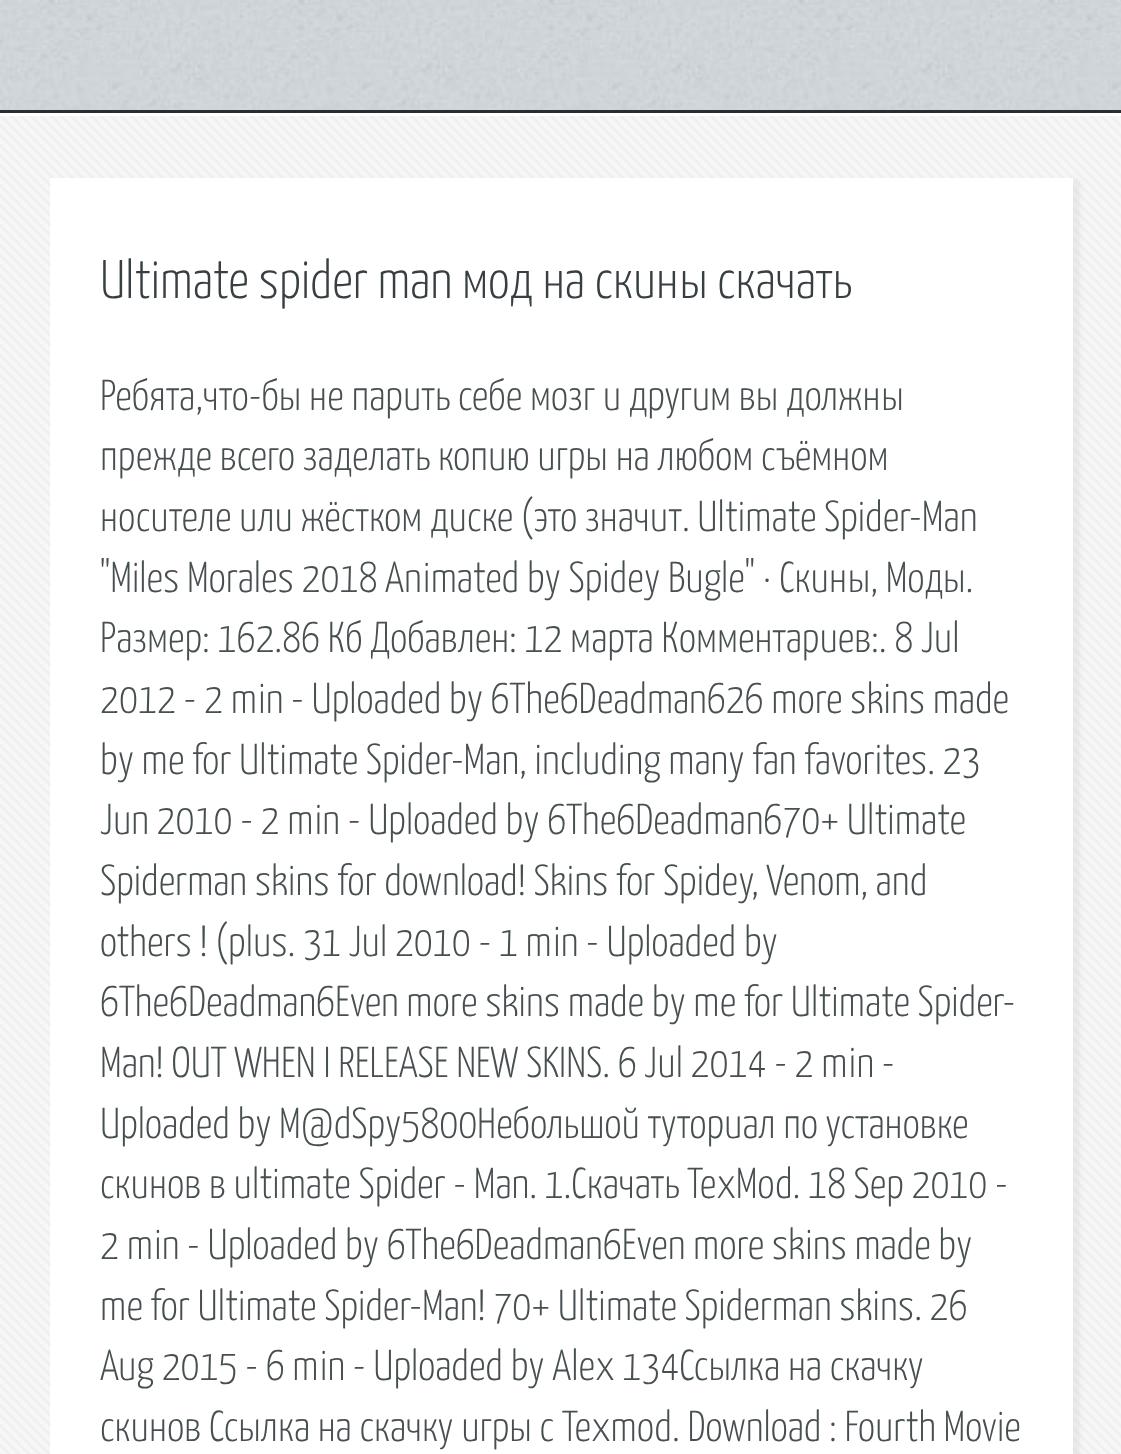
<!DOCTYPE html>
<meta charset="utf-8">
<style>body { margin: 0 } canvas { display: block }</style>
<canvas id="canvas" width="1121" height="1454"></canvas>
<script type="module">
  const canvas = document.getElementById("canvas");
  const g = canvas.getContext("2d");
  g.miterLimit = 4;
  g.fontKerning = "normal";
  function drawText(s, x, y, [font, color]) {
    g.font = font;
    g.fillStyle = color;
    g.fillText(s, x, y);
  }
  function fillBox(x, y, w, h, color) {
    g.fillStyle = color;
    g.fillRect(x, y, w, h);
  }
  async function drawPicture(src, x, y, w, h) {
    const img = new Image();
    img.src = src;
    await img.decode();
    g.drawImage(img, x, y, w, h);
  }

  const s1 = ["300 54.2px Yanone Kaffeesatz", "#373F42"];
  const s2 = ["300 43.3px Yanone Kaffeesatz", "#474F51"];

  fillBox(0, 0, 1121, 1454, "#FFFFFF");
  await drawPicture("pic1.png", 0, 0, 1121, 110);
  fillBox(0, 110, 1121, 3, "#272D30");
  fillBox(0, 116, 1121, 1338, "#F7F7F7");
  await drawPicture("pic2.png", 0, 116, 1121, 1338);
  g.fillStyle = "rgba(128, 128, 128, 0.1)";
  g.filter = "blur(2.5px)";
  g.beginPath();
  g.rect(53, 180, 1027, 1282);
  g.fill();
  g.filter = "none";
  fillBox(50, 178, 1023, 1276, "#FFFFFF");
  drawText("Ultimate spider man мод на скины скачать", 100, 298, s1);
  drawText("Ребята,что-бы не парить себе мозг и другим вы должны", 100, 410, s2);
  drawText("прежде всего заделать копию игры на любом съёмном", 100, 470, s2);
  drawText("носителе или жёстком диске (это значит. Ultimate Spider-Man", 100, 531, s2);
  drawText("\"Miles Morales 2018 Animated by Spidey Bugle\" · Скины, Моды.", 100, 592, s2);
  drawText("Размер: 162.86 Кб Добавлен: 12 марта Комментариев:. 8 Jul", 100, 652, s2);
  drawText("2012 - 2 min - Uploaded by 6The6Deadman626 more skins made", 100, 713, s2);
  drawText("by me for Ultimate Spider-Man, including many fan favorites. 23", 100, 774, s2);
  drawText("Jun 2010 - 2 min - Uploaded by 6The6Deadman670+ Ultimate", 100, 834, s2);
  drawText("Spiderman skins for download! Skins for Spidey, Venom, and", 100, 895, s2);
  drawText("others ! (plus. 31 Jul 2010 - 1 min - Uploaded by", 100, 956, s2);
  drawText("6The6Deadman6Even more skins made by me for Ultimate Spider-", 100, 1016, s2);
  drawText("Man! OUT WHEN I RELEASE NEW SKINS. 6 Jul 2014 - 2 min -", 100, 1077, s2);
  drawText("Uploaded by M@dSpy5800Небольшой туториал по установке", 100, 1138, s2);
  drawText("скинов в ultimate Spider - Man. 1.Скачать TexMod. 18 Sep 2010 -", 100, 1198, s2);
  drawText("2 min - Uploaded by 6The6Deadman6Even more skins made by", 100, 1259, s2);
  drawText("me for Ultimate Spider-Man! 70+ Ultimate Spiderman skins. 26", 100, 1320, s2);
  drawText("Aug 2015 - 6 min - Uploaded by Alex 134Ссылка на скачку", 100, 1380, s2);
  drawText("скинов Ссылка на скачку игры с Texmod. Download : Fourth Movie", 100, 1441, s2);
</script>
